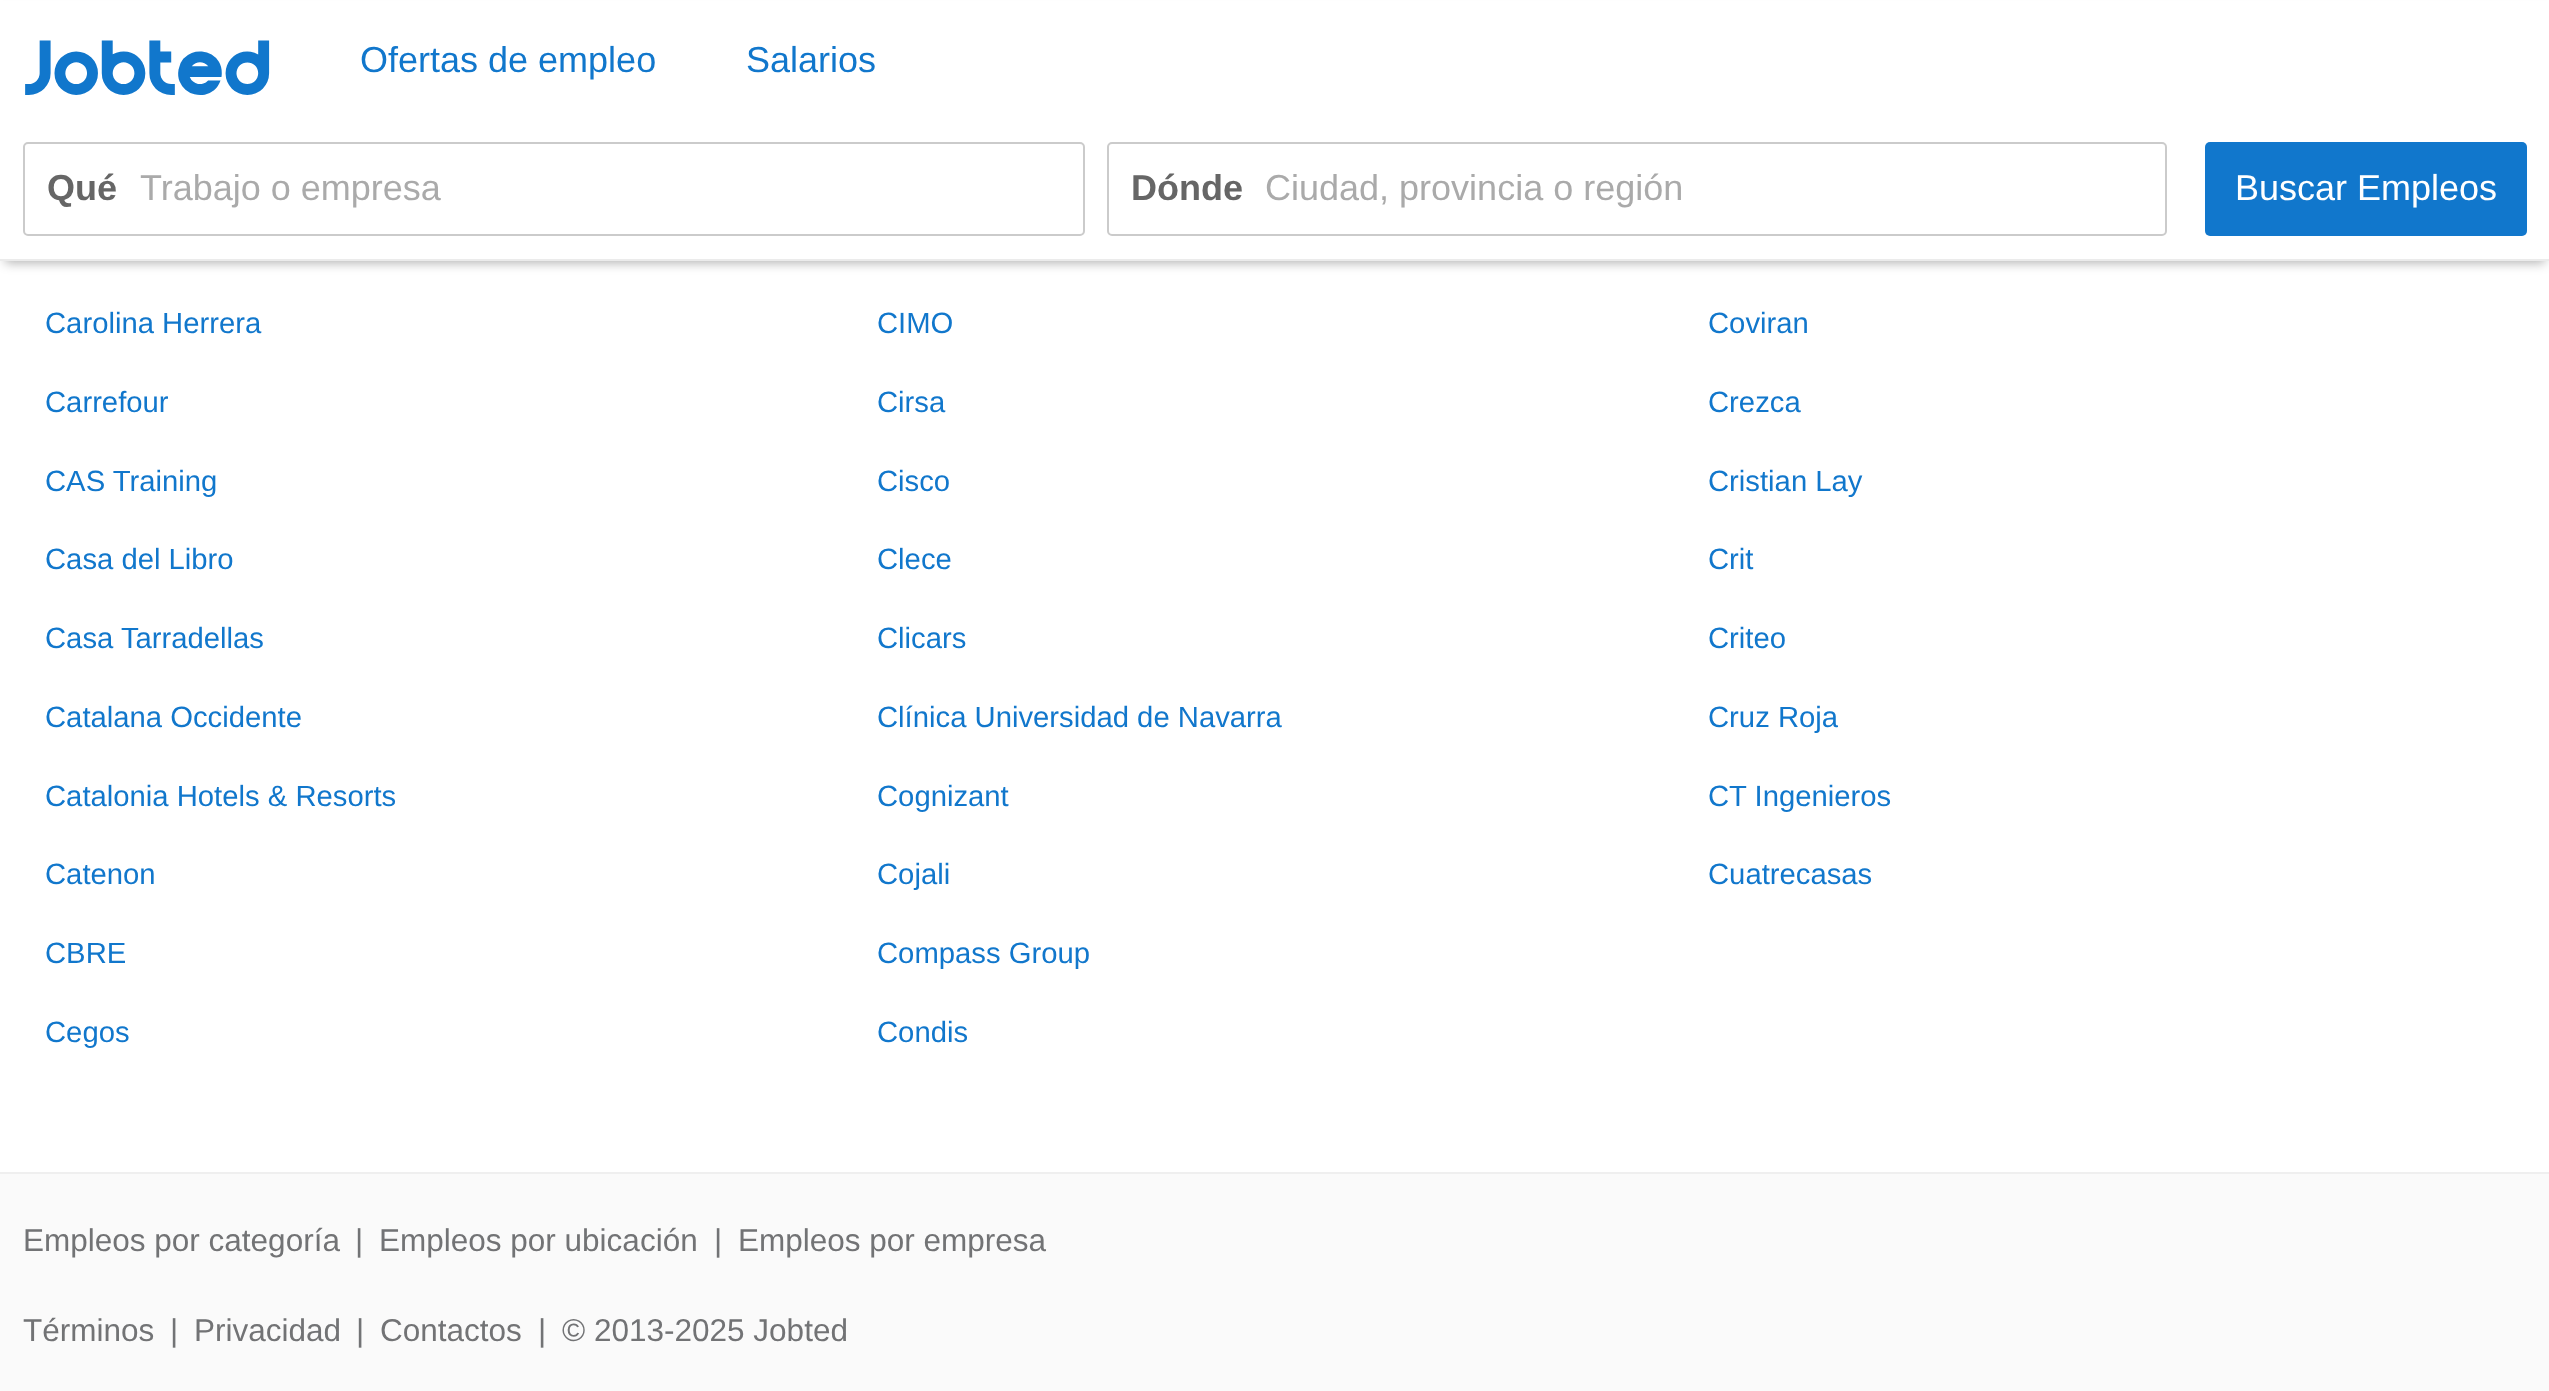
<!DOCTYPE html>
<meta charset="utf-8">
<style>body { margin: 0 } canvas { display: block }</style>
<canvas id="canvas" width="2549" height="1391"></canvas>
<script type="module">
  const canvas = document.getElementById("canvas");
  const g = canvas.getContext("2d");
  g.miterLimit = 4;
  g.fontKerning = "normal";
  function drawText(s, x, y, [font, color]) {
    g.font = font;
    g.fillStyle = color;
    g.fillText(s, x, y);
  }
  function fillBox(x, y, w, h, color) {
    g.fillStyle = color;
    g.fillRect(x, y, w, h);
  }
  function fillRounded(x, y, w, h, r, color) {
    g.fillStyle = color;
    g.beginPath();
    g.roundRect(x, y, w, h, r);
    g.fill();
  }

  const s1 = ["79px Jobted", "#1177CC"];
  const s2 = ["36px Liberation Sans", "#1177CC"];
  const s3 = ["bold 36px Liberation Sans", "#666666"];
  const s4 = ["36px Liberation Sans", "#AAAAAA"];
  const s5 = ["36px Liberation Sans", "#FFFFFF"];
  const s6 = ["29.25px Liberation Sans", "#1177CC"];
  const s7 = ["31.5px Liberation Sans", "#727375"];

  fillBox(0, 0, 2549, 1391, "#FFFFFF");
  g.fillStyle = "rgba(0, 0, 0, 0.3)";
  g.filter = "blur(5.5px)";
  g.beginPath();
  g.rect(5, 11, 2540, 252);
  g.fill();
  g.filter = "none";
  fillBox(0, 1, 2549, 258, "#FFFFFF");
  drawText("Jobted", 23, 95, s1);
  drawText("Ofertas de empleo", 360, 72, s2);
  drawText("Salarios", 746, 72, s2);
  fillBox(0, 259, 2549, 2, "#EBEBEB");
  g.beginPath();
  g.roundRect(24, 143, 1060, 92, 4);
  g.strokeStyle = "#CBCBCB";
  g.lineWidth = 2;
  g.stroke();
  drawText("Qué", 47, 200, s3);
  drawText("Trabajo o empresa", 140, 200, s4);
  g.beginPath();
  g.roundRect(1108, 143, 1058, 92, 4);
  g.stroke();
  drawText("Dónde", 1131, 200, s3);
  drawText("Ciudad, provincia o región", 1265, 200, s4);
  fillRounded(2205, 142, 322, 94, 5, "#1177CC");
  drawText("Buscar Empleos", 2235, 200, s5);
  drawText("Carolina Herrera", 45, 333, s6);
  drawText("CIMO", 877, 333, s6);
  drawText("Coviran", 1708, 333, s6);
  drawText("Carrefour", 45, 412, s6);
  drawText("Cirsa", 877, 412, s6);
  drawText("Crezca", 1708, 412, s6);
  drawText("CAS Training", 45, 491, s6);
  drawText("Cisco", 877, 491, s6);
  drawText("Cristian Lay", 1708, 491, s6);
  drawText("Casa del Libro", 45, 569, s6);
  drawText("Clece", 877, 569, s6);
  drawText("Crit", 1708, 569, s6);
  drawText("Casa Tarradellas", 45, 648, s6);
  drawText("Clicars", 877, 648, s6);
  drawText("Criteo", 1708, 648, s6);
  drawText("Catalana Occidente", 45, 727, s6);
  drawText("Clínica Universidad de Navarra", 877, 727, s6);
  drawText("Cruz Roja", 1708, 727, s6);
  drawText("Catalonia Hotels & Resorts", 45, 806, s6);
  drawText("Cognizant", 877, 806, s6);
  drawText("CT Ingenieros", 1708, 806, s6);
  drawText("Catenon", 45, 884, s6);
  drawText("Cojali", 877, 884, s6);
  drawText("Cuatrecasas", 1708, 884, s6);
  drawText("CBRE", 45, 963, s6);
  drawText("Compass Group", 877, 963, s6);
  drawText("Cegos", 45, 1042, s6);
  drawText("Condis", 877, 1042, s6);
  fillBox(0, 1174, 2549, 217, "#FAFAFA");
  fillBox(0, 1172, 2549, 2, "#EFEFEF");
  drawText("Empleos por categoría", 23, 1251, s7);
  drawText("|", 355, 1251, s7);
  drawText("Empleos por ubicación", 379, 1251, s7);
  drawText("|", 714, 1251, s7);
  drawText("Empleos por empresa", 738, 1251, s7);
  drawText("Términos", 23, 1341, s7);
  drawText("|", 170, 1341, s7);
  drawText("Privacidad", 194, 1341, s7);
  drawText("|", 356, 1341, s7);
  drawText("Contactos", 380, 1341, s7);
  drawText("|", 538, 1341, s7);
  drawText("© 2013-2025 Jobted", 562, 1341, s7);
</script>
